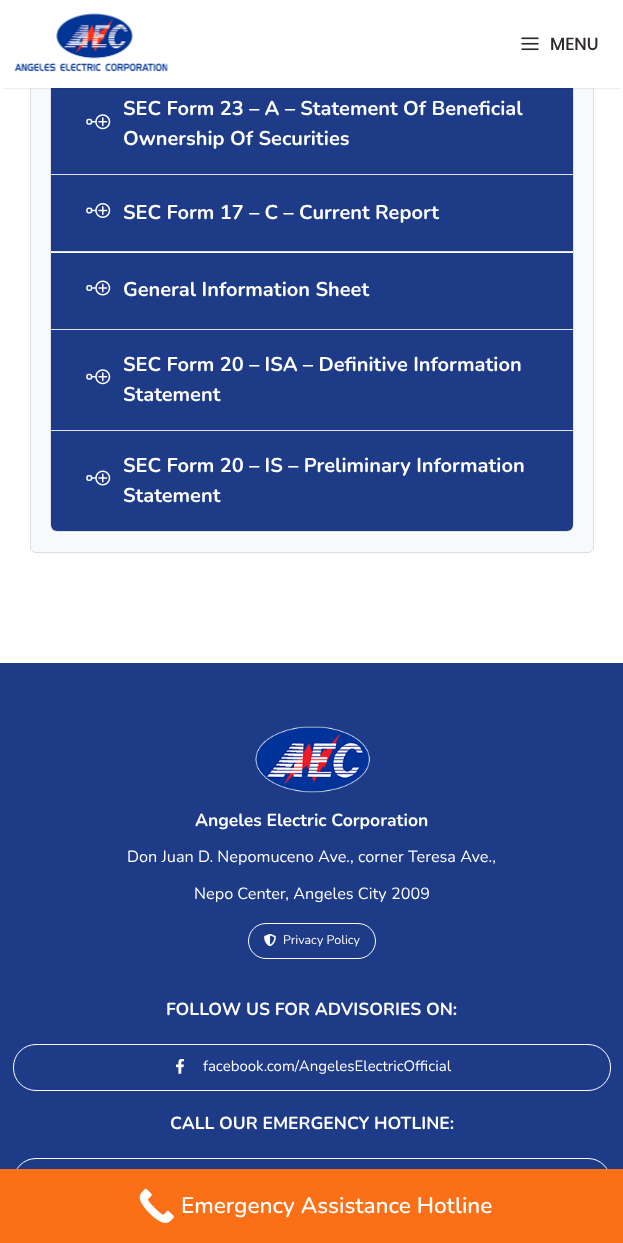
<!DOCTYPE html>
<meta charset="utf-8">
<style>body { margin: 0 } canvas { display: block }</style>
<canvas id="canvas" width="623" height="1243"></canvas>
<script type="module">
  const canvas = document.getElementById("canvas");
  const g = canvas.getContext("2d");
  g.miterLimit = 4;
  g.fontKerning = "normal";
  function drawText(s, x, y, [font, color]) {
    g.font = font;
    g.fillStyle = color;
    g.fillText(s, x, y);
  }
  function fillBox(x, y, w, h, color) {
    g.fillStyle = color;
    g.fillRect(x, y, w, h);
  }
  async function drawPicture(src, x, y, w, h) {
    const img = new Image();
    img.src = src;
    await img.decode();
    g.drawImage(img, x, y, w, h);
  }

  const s1 = ["500 17.5px Poppins", "#2E2A2A"];
  const s2 = ["bold 20px Nunito", "#FFFFFF"];
  const s3 = ["bold 17.5px Nunito", "#FFFFFF"];
  const s4 = ["16.25px Nunito", "#FFFFFF"];
  const s5 = ["12.5px Nunito", "#FFFFFF"];
  const s6 = ["15px Nunito", "#FFFFFF"];
  const s7 = ["600 22.5px Nunito", "#FFFFFF"];

  fillBox(0, 0, 623, 1243, "#FFFFFF");
  g.fillStyle = "#F8F9FA";
  g.beginPath();
  g.roundRect(30.5, -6.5, 563, 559, 5.5);
  g.fill();
  g.strokeStyle = "#DDDDDD";
  g.stroke();
  fillBox(573, 88, 1, 343, "#DEE2E6");
  fillBox(50, 174, 524, 1, "#DEE2E6");
  fillBox(50, 88, 1, 87, "#DEE2E6");
  fillBox(51, 88, 522, 86, "#1E3B88");
  g.fillStyle = "rgba(0, 0, 0, 0.2)";
  g.filter = "blur(1px)";
  g.beginPath();
  g.rect(3, 5, 618, 83);
  g.fill();
  g.filter = "none";
  fillBox(1, 0, 622, 88, "#FFFFFF");
  await drawPicture("pic1.png", 14, 13, 154, 59);
  await drawPicture("pic2.png", 521, 37, 18, 14);
  drawText("MENU", 550, 50, s1);
  drawText("SEC Form 23 – A – Statement Of Beneficial", 123, 115, s2);
  await drawPicture("pic3.png", 86, 114, 25, 16);
  drawText("Ownership Of Securities", 123, 145, s2);
  fillBox(51, 252, 522, 1, "#FFFFFF");
  fillBox(50, 251, 524, 1, "#DEE2E6");
  fillBox(50, 175, 1, 78, "#DEE2E6");
  fillBox(51, 175, 522, 76, "#1E3B88");
  await drawPicture("pic4.png", 86, 203, 25, 15);
  drawText("SEC Form 17 – C – Current Report", 123, 219, s2);
  fillBox(50, 329, 524, 1, "#DEE2E6");
  fillBox(50, 253, 1, 77, "#DEE2E6");
  fillBox(51, 253, 522, 76, "#1E3B88");
  await drawPicture("pic5.png", 86, 280, 25, 16);
  drawText("General Information Sheet", 123, 296, s2);
  fillBox(50, 430, 524, 1, "#DEE2E6");
  fillBox(50, 330, 1, 101, "#DEE2E6");
  fillBox(51, 330, 522, 100, "#1E3B88");
  drawText("SEC Form 20 – ISA – Definitive Information", 123, 371, s2);
  await drawPicture("pic3.png", 86, 369, 25, 16);
  drawText("Statement", 123, 401, s2);
  g.beginPath();
  g.roundRect(50, 431, 524, 102, [0, 0, 8, 8]);
  g.fill();
  g.fillStyle = "#DEE2E6";
  g.beginPath();
  g.moveTo(50, 431);
  g.lineTo(574, 431);
  g.lineTo(574, 525);
  g.bezierCurveTo(574, 529, 570, 532, 566, 532);
  g.lineTo(58, 532);
  g.bezierCurveTo(53, 532, 50, 529, 50, 525);
  g.closePath();
  g.moveTo(51, 431);
  g.lineTo(572, 431);
  g.lineTo(572, 525);
  g.bezierCurveTo(572, 528, 570, 531, 566, 531);
  g.lineTo(58, 531);
  g.bezierCurveTo(54, 531, 51, 528, 51, 525);
  g.closePath();
  g.fill("evenodd");
  g.fillStyle = "#1E3B88";
  g.beginPath();
  g.roundRect(51, 431, 522, 100, [0, 0, 6, 6]);
  g.fill();
  drawText("SEC Form 20 – IS – Preliminary Information", 123, 472, s2);
  await drawPicture("pic5.png", 86, 470, 25, 16);
  drawText("Statement", 123, 502, s2);
  fillBox(0, 663, 623, 506, "#1E3B88");
  await drawPicture("pic6.png", 255, 726, 115, 67);
  drawText("Angeles Electric Corporation", 195, 826, s3);
  drawText("Don Juan D. Nepomuceno Ave., corner Teresa Ave.,", 127, 862, s4);
  drawText("Nepo Center, Angeles City 2009", 194, 899, s4);
  g.beginPath();
  g.roundRect(248.5, 923.5, 127, 35, 17.5);
  g.strokeStyle = "#FFFFFF";
  g.stroke();
  await drawPicture("pic7.png", 264, 934, 12, 12);
  drawText("Privacy Policy", 283, 944, s5);
  drawText("FOLLOW US FOR ADVISORIES ON:", 166, 1015, s3);
  g.beginPath();
  g.roundRect(13.5, 1044.5, 597, 46, 22.5);
  g.stroke();
  await drawPicture("pic8.png", 176, 1059, 8, 15);
  drawText("facebook.com/AngelesElectricOfficial", 203, 1071, s6);
  drawText("CALL OUR EMERGENCY HOTLINE:", 170, 1129, s3);
  g.beginPath();
  g.roundRect(13.5, 1158.5, 597, 46, 22.5);
  g.stroke();
  fillBox(0, 1169, 623, 74, "#FB6F17");
  await drawPicture("pic9.png", 139, 1188, 35, 35);
  drawText("Emergency Assistance Hotline", 181, 1213, s7);
</script>
